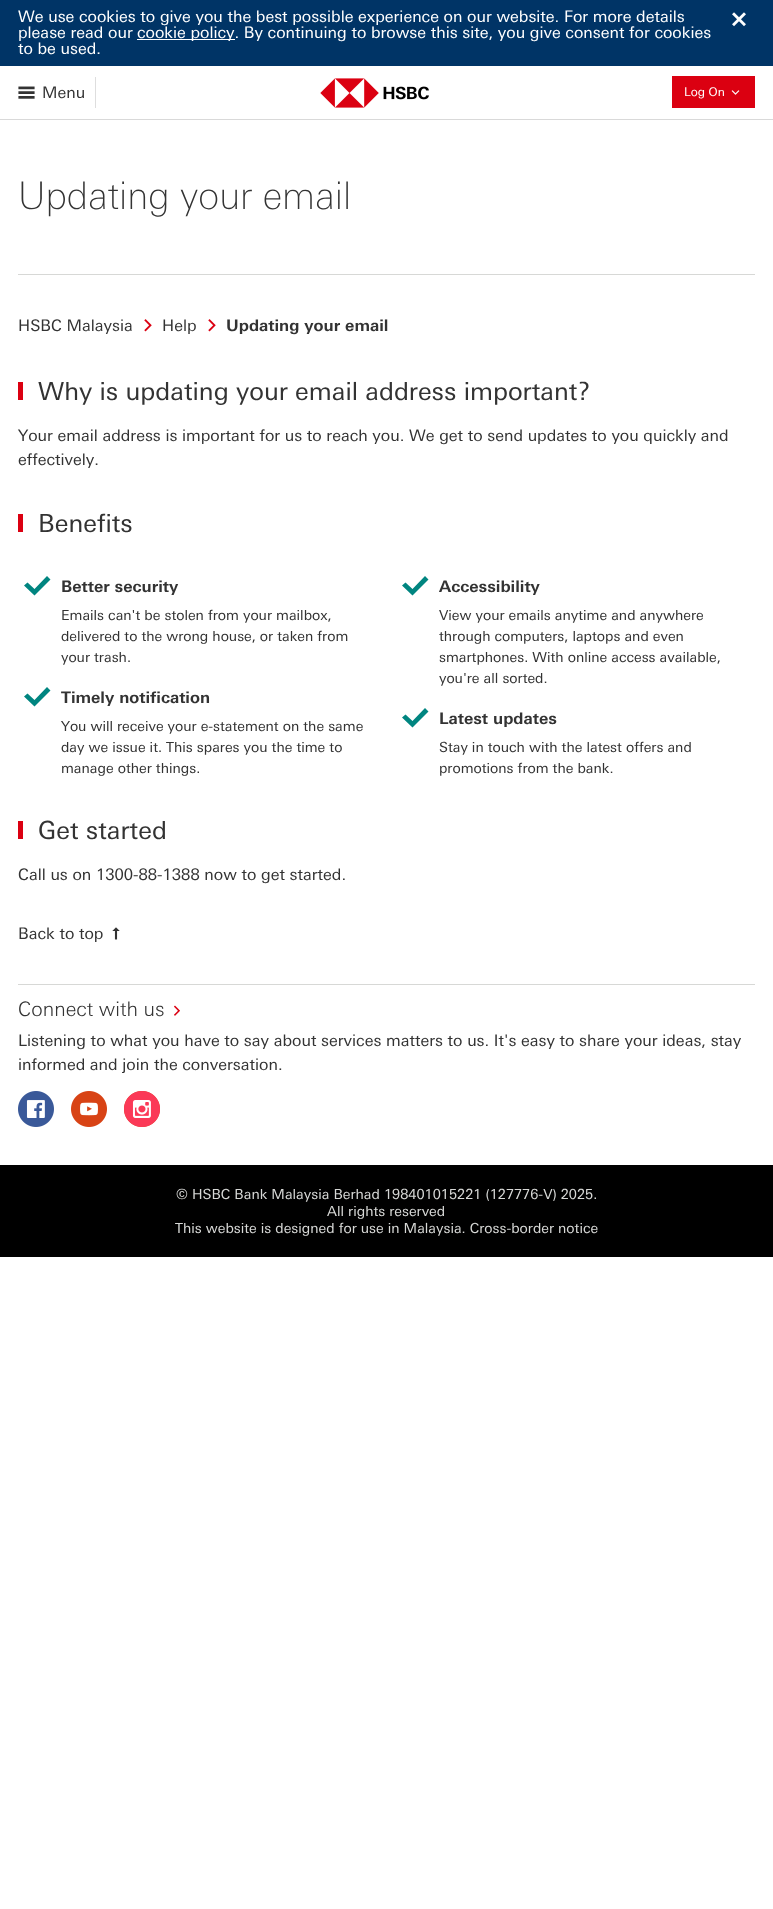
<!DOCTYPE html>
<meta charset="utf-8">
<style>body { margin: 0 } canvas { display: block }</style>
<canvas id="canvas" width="773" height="1909"></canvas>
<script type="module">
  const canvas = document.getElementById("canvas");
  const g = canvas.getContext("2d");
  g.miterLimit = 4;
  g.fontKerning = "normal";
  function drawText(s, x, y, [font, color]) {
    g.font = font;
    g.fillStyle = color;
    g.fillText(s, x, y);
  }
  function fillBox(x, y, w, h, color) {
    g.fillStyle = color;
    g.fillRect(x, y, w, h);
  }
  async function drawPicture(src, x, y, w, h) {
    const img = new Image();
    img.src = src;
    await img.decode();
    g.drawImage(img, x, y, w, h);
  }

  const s1 = ["16px 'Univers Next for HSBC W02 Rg'", "#FFFFFF"];
  const s2 = ["16px 'Univers Next for HSBC W02 Rg'", "#333333"];
  const s3 = ["12px 'Univers Next for HSBC W02 Rg'", "#FFFFFF"];
  const s4 = ["200 38px 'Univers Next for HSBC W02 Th'", "#333333"];
  const s5 = ["bold 16px 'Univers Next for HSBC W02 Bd'", "#333333"];
  const s6 = ["25px 'Univers Next for HSBC W02 Rg'", "#333333"];
  const s7 = ["14px 'Univers Next for HSBC W02 Rg'", "#333333"];
  const s8 = ["300 20px 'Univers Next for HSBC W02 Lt'", "#333333"];
  const s9 = ["14px 'Univers Next for HSBC W02 Rg'", "#D7D8D6"];

  fillBox(0, 0, 773, 1909, "#FFFFFF");
  fillBox(0, 0, 773, 66, "#003466");
  drawText("We use cookies to give you the best possible experience on our website. For more details", 18, 22, s1);
  drawText("please read our", 18, 38, s1);
  fillBox(137, 39, 98, 1, "#FFFFFF");
  drawText("cookie policy. By continuing to browse this site, you give consent for cookies", 137, 38, s1);
  drawText("to be used.", 18, 54, s1);
  await drawPicture("pic1.png", 732, 12, 14, 15);
  fillBox(0, 119, 773, 1, "#D9D9D9");
  fillBox(95, 77, 1, 31, "#DEDEDE");
  await drawPicture("pic2.png", 18, 86, 17, 13);
  drawText("Menu", 42, 98, s2);
  await drawPicture("pic3.png", 320, 78, 109, 30);
  fillBox(672, 76, 83, 32, "#DB0011");
  drawText("Log On", 684, 96, s3);
  await drawPicture("pic4.png", 731, 90, 9, 5);
  drawText("Updating your email", 18, 209, s4);
  fillBox(18, 274, 737, 1, "#D7D8D6");
  drawText("HSBC Malaysia", 18, 331, s2);
  await drawPicture("pic5.png", 144, 319, 8, 13);
  drawText("Help", 162, 331, s2);
  await drawPicture("pic5.png", 208, 319, 8, 13);
  drawText("Updating your email", 226, 331, s5);
  fillBox(18, 382, 5, 18, "#DB0011");
  drawText("Why is updating your email address important?", 38, 400, s6);
  drawText("Your email address is important for us to reach you. We get to send updates to you quickly and", 18, 441, s2);
  drawText("effectively.", 18, 465, s2);
  fillBox(18, 514, 5, 18, "#DB0011");
  drawText("Benefits", 38, 532, s6);
  g.fillStyle = "#008580";
  g.beginPath();
  g.moveTo(34.5, 589);
  g.lineTo(47, 576);
  g.lineTo(50.5, 579.5);
  g.lineTo(34.5, 595.5);
  g.lineTo(24, 585.5);
  g.lineTo(27.5, 582.5);
  g.closePath();
  g.fill();
  drawText("Better security", 61, 592, s5);
  drawText("Emails can't be stolen from your mailbox,", 61, 620, s7);
  drawText("delivered to the wrong house, or taken from", 61, 641, s7);
  drawText("your trash.", 61, 662, s7);
  g.fillStyle = "#008580";
  g.beginPath();
  g.moveTo(34.5, 700);
  g.lineTo(47, 687);
  g.lineTo(50.5, 690.5);
  g.lineTo(34.5, 706.5);
  g.lineTo(24, 696.5);
  g.lineTo(27.5, 693.5);
  g.closePath();
  g.fill();
  drawText("Timely notification", 61, 703, s5);
  drawText("You will receive your e-statement on the same", 61, 731, s7);
  drawText("day we issue it. This spares you the time to", 61, 752, s7);
  drawText("manage other things.", 61, 773, s7);
  g.fillStyle = "#008580";
  g.beginPath();
  g.moveTo(412.5, 589);
  g.lineTo(425, 576);
  g.lineTo(428.5, 579.5);
  g.lineTo(412.5, 595.5);
  g.lineTo(402, 585.5);
  g.lineTo(405.5, 582.5);
  g.closePath();
  g.fill();
  drawText("Accessibility", 439, 592, s5);
  drawText("View your emails anytime and anywhere", 439, 620, s7);
  drawText("through computers, laptops and even", 439, 641, s7);
  drawText("smartphones. With online access available,", 439, 662, s7);
  drawText("you're all sorted.", 439, 683, s7);
  g.fillStyle = "#008580";
  g.beginPath();
  g.moveTo(412.5, 721);
  g.lineTo(425, 708);
  g.lineTo(428.5, 711.5);
  g.lineTo(412.5, 727.5);
  g.lineTo(402, 717.5);
  g.lineTo(405.5, 714.5);
  g.closePath();
  g.fill();
  drawText("Latest updates", 439, 724, s5);
  drawText("Stay in touch with the latest offers and", 439, 752, s7);
  drawText("promotions from the bank.", 439, 773, s7);
  fillBox(18, 821, 5, 18, "#DB0011");
  drawText("Get started", 38, 839, s6);
  drawText("Call us on 1300-88-1388 now to get started.", 18, 880, s2);
  drawText("Back to top", 18, 939, s2);
  await drawPicture("pic6.png", 112, 927, 8, 13);
  fillBox(18, 984, 737, 1, "#D7D8D6");
  drawText("Connect with us", 18, 1016, s8);
  await drawPicture("pic7.png", 174, 1005, 6, 11);
  drawText("Listening to what you have to say about services matters to us. It's easy to share your ideas, stay", 18, 1046, s2);
  drawText("informed and join the conversation.", 18, 1070, s2);
  await drawPicture("pic8.png", 18, 1091, 36, 36);
  await drawPicture("pic9.png", 71, 1091, 36, 36);
  await drawPicture("pic10.png", 124, 1091, 36, 36);
  fillBox(0, 1165, 773, 92, "#000000");
  drawText("© HSBC Bank Malaysia Berhad 198401015221 (127776-V) 2025.", 176, 1199, s9);
  drawText("All rights reserved", 327, 1216, s9);
  drawText("This website is designed for use in Malaysia. Cross-border notice", 175, 1233, s9);
</script>
